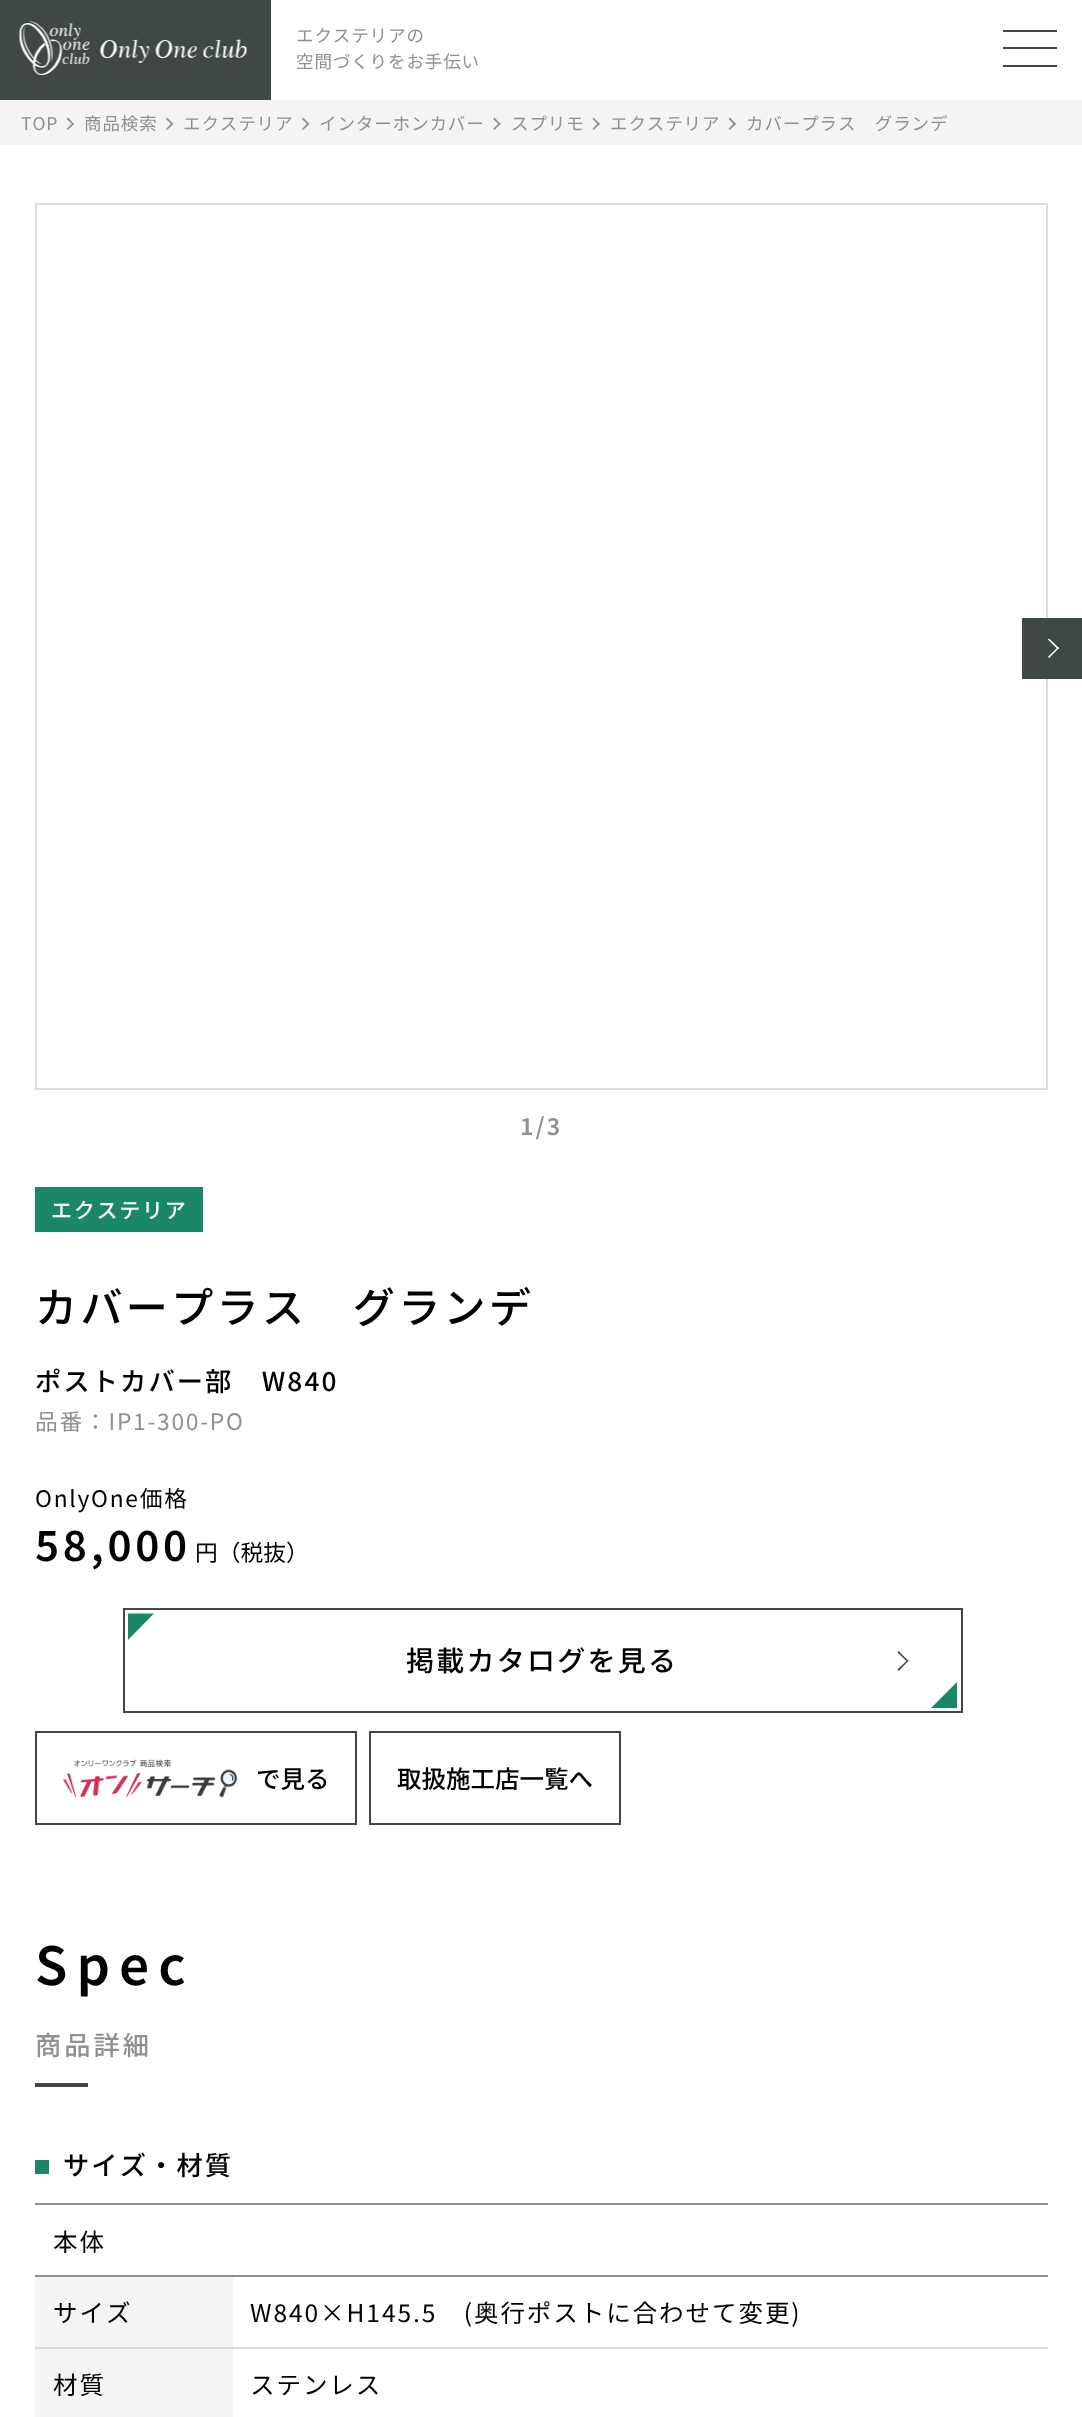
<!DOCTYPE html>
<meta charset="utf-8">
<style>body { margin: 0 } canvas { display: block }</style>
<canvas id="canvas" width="1082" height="2417"></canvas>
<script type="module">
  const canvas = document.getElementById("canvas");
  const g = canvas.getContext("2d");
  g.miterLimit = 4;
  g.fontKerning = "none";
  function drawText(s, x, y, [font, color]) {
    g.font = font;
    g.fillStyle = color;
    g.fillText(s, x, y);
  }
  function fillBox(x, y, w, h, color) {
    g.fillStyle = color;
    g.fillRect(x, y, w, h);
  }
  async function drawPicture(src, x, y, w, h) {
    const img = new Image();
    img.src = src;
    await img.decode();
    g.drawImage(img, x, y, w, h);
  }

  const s1 = ["17.5px Noto Sans JP", "#909090"];
  const s2 = ["600 26.25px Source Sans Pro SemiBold", "#909090"];
  const s3 = ["500 21px Noto Sans JP", "#FFFFFF"];
  const s4 = ["500 42px Noto Sans JP", "#000000"];
  const s5 = ["500 26.25px Noto Sans JP", "#000000"];
  const s6 = ["22.75px Noto Sans JP", "#909090"];
  const s7 = ["22.75px Noto Sans JP", "#000000"];
  const s8 = ["600 47px Source Sans Pro SemiBold", "#000000"];
  const s9 = ["500 28px Noto Sans JP", "#000000"];
  const s10 = ["500 24.5px Noto Sans JP", "#000000"];
  const s11 = ["600 59.5px Source Sans Pro SemiBold", "#000000"];
  const s12 = ["500 26.25px Noto Sans JP", "#909090"];
  const s13 = ["24.5px Noto Sans JP", "#000000"];

  fillBox(0, 0, 1082, 2417, "#FFFFFF");
  fillBox(0, 0, 271, 100, "#404846");
  await drawPicture("pic1.png", 19, 21, 228, 54);
  g.letterSpacing = "0.9px";
  drawText("エクステリアの", 296, 42, s1);
  drawText("空間づくりをお手伝い", 296, 68, s1);
  fillBox(1003, 30, 54, 2, "#404846");
  fillBox(1003, 47, 54, 2, "#404846");
  fillBox(1003, 65, 54, 2, "#404846");
  fillBox(0, 100, 1082, 45, "#F4F4F4");
  drawText("TOP", 21, 130, s1);
  g.beginPath();
  g.moveTo(74, 124);
  g.lineTo(68, 130);
  g.lineTo(66.5, 129);
  g.lineTo(73, 122.5);
  g.closePath();
  g.fill();
  g.beginPath();
  g.moveTo(74, 124);
  g.lineTo(73, 125);
  g.lineTo(66.5, 119);
  g.lineTo(68, 117.5);
  g.closePath();
  g.fill();
  drawText("商品検索", 84, 130, s1);
  g.beginPath();
  g.moveTo(173.5, 124);
  g.lineTo(167, 130);
  g.lineTo(166, 129);
  g.lineTo(172, 122.5);
  g.closePath();
  g.fill();
  g.beginPath();
  g.moveTo(173.5, 124);
  g.lineTo(172, 125);
  g.lineTo(166, 119);
  g.lineTo(167, 117.5);
  g.closePath();
  g.fill();
  drawText("エクステリア", 183, 130, s1);
  g.beginPath();
  g.moveTo(309.5, 124);
  g.lineTo(303, 130);
  g.lineTo(302, 129);
  g.lineTo(308, 122.5);
  g.closePath();
  g.fill();
  g.beginPath();
  g.moveTo(309.5, 124);
  g.lineTo(308, 125);
  g.lineTo(302, 119);
  g.lineTo(303, 117.5);
  g.closePath();
  g.fill();
  drawText("インターホンカバー", 319, 130, s1);
  g.beginPath();
  g.moveTo(500.5, 124);
  g.lineTo(494.5, 130);
  g.lineTo(493, 129);
  g.lineTo(499.5, 122.5);
  g.closePath();
  g.fill();
  g.beginPath();
  g.moveTo(500.5, 124);
  g.lineTo(499.5, 125);
  g.lineTo(493, 119);
  g.lineTo(494.5, 117.5);
  g.closePath();
  g.fill();
  drawText("スプリモ", 511, 130, s1);
  g.beginPath();
  g.moveTo(600, 124);
  g.lineTo(593.5, 130);
  g.lineTo(592.5, 129);
  g.lineTo(598.5, 122.5);
  g.closePath();
  g.fill();
  g.beginPath();
  g.moveTo(600, 124);
  g.lineTo(598.5, 125);
  g.lineTo(592.5, 119);
  g.lineTo(593.5, 117.5);
  g.closePath();
  g.fill();
  drawText("エクステリア", 610, 130, s1);
  g.beginPath();
  g.moveTo(736, 124);
  g.lineTo(730, 130);
  g.lineTo(728.5, 129);
  g.lineTo(734.5, 122.5);
  g.closePath();
  g.fill();
  g.beginPath();
  g.moveTo(736, 124);
  g.lineTo(734.5, 125);
  g.lineTo(728.5, 119);
  g.lineTo(730, 117.5);
  g.closePath();
  g.fill();
  drawText("カバープラス　グランデ", 746, 130, s1);
  g.strokeStyle = "#DBDBDB";
  g.lineWidth = 2;
  g.strokeRect(36, 204, 1011, 885);
  fillBox(1022, 618, 60, 61, "#404846");
  g.fillStyle = "#FFFFFF";
  g.beginPath();
  g.moveTo(1049, 638.5);
  g.lineTo(1059, 648);
  g.lineTo(1058, 649.5);
  g.lineTo(1048, 639.5);
  g.closePath();
  g.fill();
  g.beginPath();
  g.moveTo(1058, 647);
  g.lineTo(1059, 648);
  g.lineTo(1049, 658);
  g.lineTo(1048, 657);
  g.closePath();
  g.fill();
  g.letterSpacing = "2.1px";
  drawText("1/3", 520, 1135, s2);
  fillBox(35, 1187, 168, 45, "#1A8866");
  g.letterSpacing = "1.75px";
  drawText("エクステリア", 51, 1218, s3);
  g.letterSpacing = "3.4px";
  drawText("カバープラス　グランデ", 35, 1323, s4);
  g.letterSpacing = "2.1px";
  drawText("ポストカバー部　W840", 35, 1391, s5);
  g.letterSpacing = "1.75px";
  drawText("品番：IP1-300-PO", 35, 1430, s6);
  drawText("OnlyOne価格", 35, 1507, s7);
  g.letterSpacing = "3.75px";
  drawText("58,000", 35, 1561, s8);
  g.letterSpacing = "0px";
  drawText("円（税抜）", 195, 1561, s7);
  g.fillStyle = "#1A8866";
  g.beginPath();
  g.moveTo(128, 1613.5);
  g.lineTo(154, 1613.5);
  g.lineTo(128, 1640);
  g.closePath();
  g.fill();
  g.beginPath();
  g.moveTo(957, 1708);
  g.lineTo(931, 1708);
  g.lineTo(957, 1682);
  g.closePath();
  g.fill();
  g.fillStyle = "#404846";
  g.beginPath();
  g.moveTo(898.5, 1651);
  g.lineTo(908.5, 1661);
  g.lineTo(907.5, 1662);
  g.lineTo(897.5, 1652.5);
  g.closePath();
  g.fill();
  g.beginPath();
  g.moveTo(907.5, 1660);
  g.lineTo(908.5, 1661);
  g.lineTo(898.5, 1671);
  g.lineTo(897.5, 1669.5);
  g.closePath();
  g.fill();
  g.strokeStyle = "#404846";
  g.strokeRect(124, 1609, 838, 103);
  g.letterSpacing = "2.25px";
  drawText("掲載カタログを見る", 406, 1671, s9);
  g.strokeRect(36, 1732, 320, 92);
  await drawPicture("pic2.png", 63, 1759, 175, 39);
  g.letterSpacing = "0px";
  drawText("で見る", 256, 1788, s10);
  g.strokeRect(370, 1732, 250, 92);
  drawText("取扱施工店一覧へ", 397, 1788, s10);
  g.letterSpacing = "9px";
  drawText("Spec", 35, 1985, s11);
  g.letterSpacing = "3px";
  drawText("商品詳細", 35, 2055, s12);
  fillBox(35, 2083, 53, 4, "#404846");
  fillBox(35, 2160, 14, 14, "#1A8866");
  g.letterSpacing = "2.1px";
  drawText("サイズ・材質", 63, 2175, s5);
  fillBox(35, 2203, 1013, 2, "#909090");
  fillBox(35, 2275, 1013, 2, "#909090");
  g.letterSpacing = "1.95px";
  drawText("本体", 53, 2251, s13);
  fillBox(35, 2347, 1013, 2, "#DBDBDB");
  fillBox(35, 2277, 198, 70, "#F4F4F4");
  drawText("サイズ", 53, 2322, s13);
  drawText("W840×H145.5　(奥行ポストに合わせて変更)", 250, 2322, s13);
  fillBox(35, 2349, 198, 68, "#F4F4F4");
  drawText("材質", 53, 2394, s13);
  drawText("ステンレス", 250, 2394, s13);
</script>
